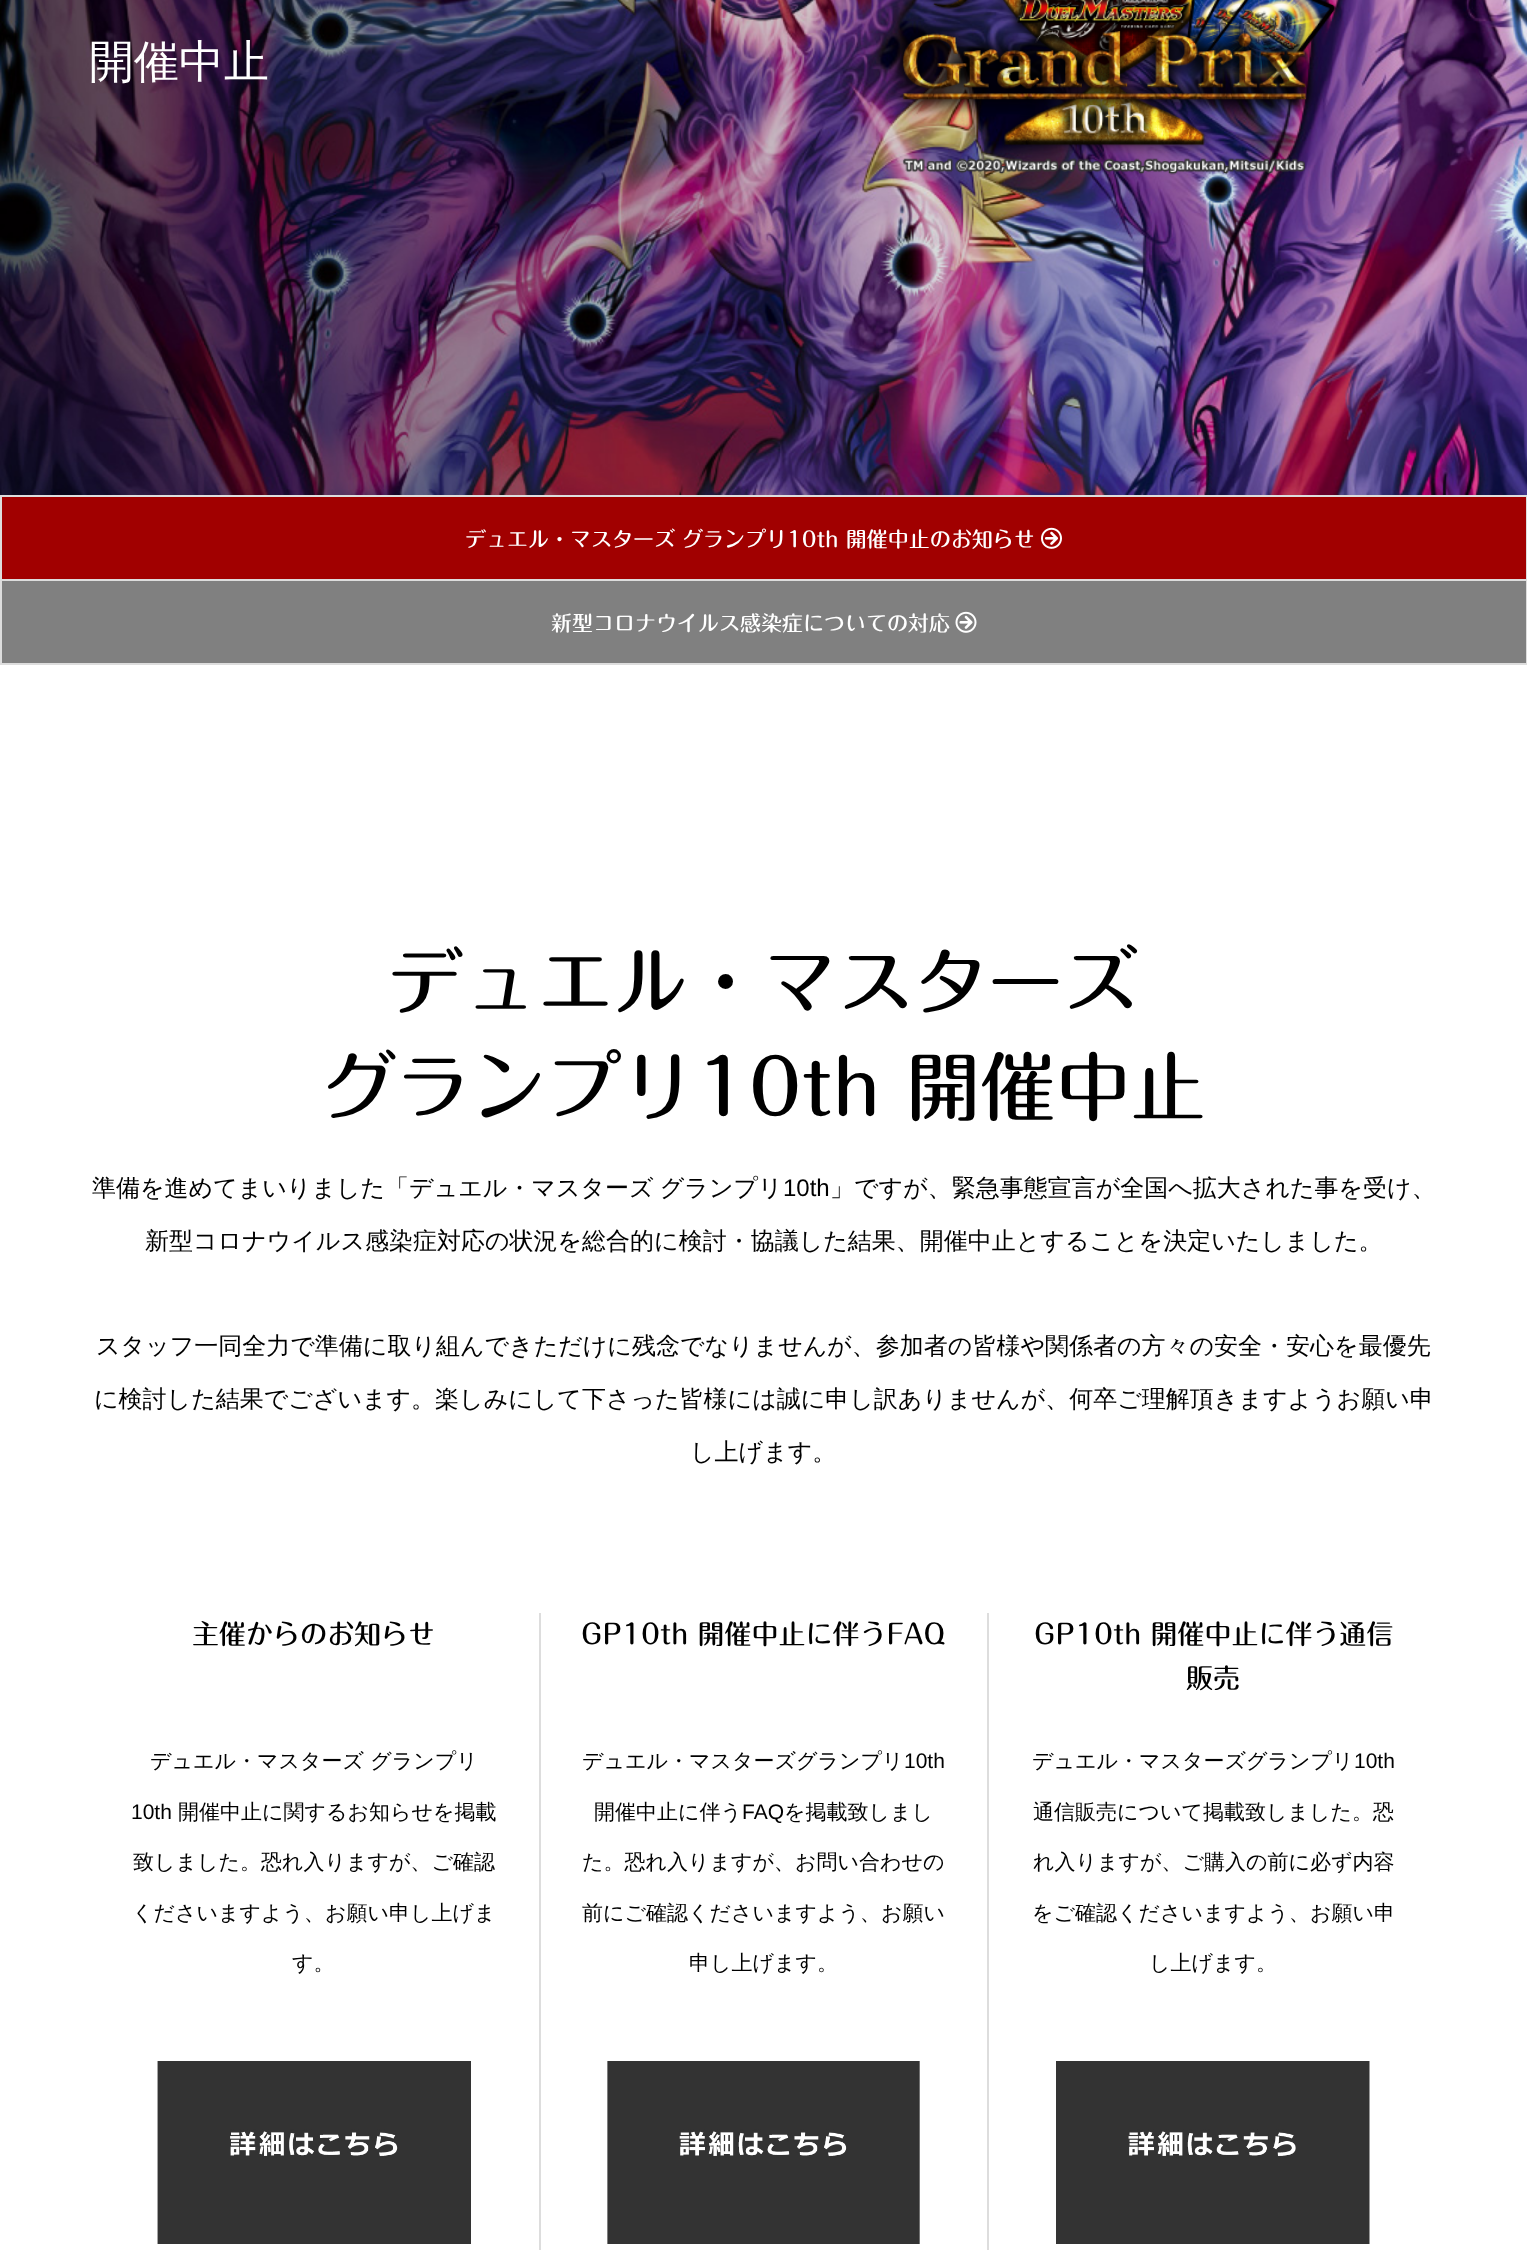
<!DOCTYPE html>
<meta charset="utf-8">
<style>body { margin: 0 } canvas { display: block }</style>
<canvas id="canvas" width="1527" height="2250"></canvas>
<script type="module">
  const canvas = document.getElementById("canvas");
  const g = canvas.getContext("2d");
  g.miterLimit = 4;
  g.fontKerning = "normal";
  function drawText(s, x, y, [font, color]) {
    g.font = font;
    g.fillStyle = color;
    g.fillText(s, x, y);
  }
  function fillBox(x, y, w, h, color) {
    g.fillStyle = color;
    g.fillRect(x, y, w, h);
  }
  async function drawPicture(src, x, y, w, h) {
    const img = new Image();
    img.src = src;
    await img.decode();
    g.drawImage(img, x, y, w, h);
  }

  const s1 = ["500 45px WenQuanYi Zen Hei", "#FFFFFF"];
  const s2 = ["500 21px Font", "#FFFFFF"];
  const s3 = ["500 75px Font", "#000000"];
  const s4 = ["500 24px WenQuanYi Zen Hei", "#000000"];
  const s5 = ["24px Liberation Sans", "#000000"];
  const s6 = ["500 27px Font", "#000000"];
  const s7 = ["500 21px WenQuanYi Zen Hei", "#000000"];
  const s8 = ["21px Liberation Sans", "#000000"];

  fillBox(0, 0, 1527, 2250, "#FFFFFF");
  await drawPicture("pic1.png", 0, 0, 1527, 495);
  drawText("開催中止", 89, 77, s1);
  await drawPicture("pic2.png", 889, 0, 447, 175);
  fillBox(2, 497, 1524, 82, "#A10000");
  fillBox(0, 495, 1527, 2, "#DDDDDD");
  fillBox(0, 579, 1527, 2, "#DDDDDD");
  fillBox(1526, 579, 1, 86, "#DDDDDD");
  fillBox(1526, 495, 1, 86, "#DDDDDD");
  fillBox(0, 663, 1527, 2, "#DDDDDD");
  fillBox(0, 579, 2, 86, "#DDDDDD");
  fillBox(0, 495, 2, 86, "#DDDDDD");
  drawText("デュエル・マスターズ グランプリ10th 開催中止のお知らせ", 465, 547, s2);
  await drawPicture("pic3.png", 1041, 527, 21, 22);
  fillBox(2, 581, 1524, 82, "#808080");
  drawText("新型コロナウイルス感染症についての対応", 551, 631, s2);
  await drawPicture("pic4.png", 955, 611, 22, 22);
  drawText("デュエル・マスターズ", 388, 1010, s3);
  drawText("グランプリ10th 開催中止", 321, 1115, s3);
  g.wordSpacing = "-1px";
  drawText("準備を進めてまいりました「デュエル・マスターズ グランプリ", 92, 1196, s4);
  g.wordSpacing = "0px";
  drawText("10th", 783, 1196, s5);
  drawText("」ですが、緊急事態宣言が全国へ拡大された事を受け、", 830, 1196, s4);
  drawText("新型コロナウイルス感染症対応の状況を総合的に検討・協議した結果、開催中止とすることを決定いたしました。", 145, 1249, s4);
  drawText("スタッフ一同全力で準備に取り組んできただけに残念でなりませんが、参加者の皆様や関係者の方々の安全・安心を最優先", 96, 1354, s4);
  drawText("に検討した結果でございます。楽しみにして下さった皆様には誠に申し訳ありませんが、何卒ご理解頂きますようお願い申", 94, 1407, s4);
  drawText("し上げます。", 690, 1460, s4);
  fillBox(539, 1613, 2, 637, "#DDDDDD");
  drawText("主催からのお知らせ", 192, 1644, s6);
  drawText("デュエル・マスターズ グランプリ", 150, 1768, s7);
  drawText("10th", 131, 1819, s8);
  drawText("開催中止に関するお知らせを掲載", 178, 1819, s7);
  drawText("致しました。恐れ入りますが、ご確認", 133, 1869, s7);
  drawText("くださいますよう、お願い申し上げま", 132, 1920, s7);
  drawText("す。", 292, 1970, s7);
  await drawPicture("pic5.png", 157, 2061, 314, 183);
  fillBox(987, 1613, 2, 637, "#DDDDDD");
  drawText("GP10th 開催中止に伴うFAQ", 581, 1644, s6);
  drawText("デュエル・マスターズグランプリ", 582, 1768, s7);
  drawText("10th", 904, 1768, s8);
  drawText("開催中止に伴う", 594, 1819, s7);
  drawText("FAQ", 742, 1819, s8);
  drawText("を掲載致しまし", 784, 1819, s7);
  drawText("た。恐れ入りますが、お問い合わせの", 582, 1869, s7);
  drawText("前にご確認くださいますよう、お願い", 582, 1920, s7);
  drawText("申し上げます。", 689, 1970, s7);
  await drawPicture("pic6.png", 607, 2061, 313, 183);
  drawText("GP10th 開催中止に伴う通信", 1034, 1644, s6);
  drawText("販売", 1186, 1688, s6);
  drawText("デュエル・マスターズグランプリ", 1032, 1768, s7);
  drawText("10th", 1354, 1768, s8);
  drawText("通信販売について掲載致しました。恐", 1033, 1819, s7);
  drawText("れ入りますが、ご購入の前に必ず内容", 1033, 1869, s7);
  drawText("をご確認くださいますよう、お願い申", 1032, 1920, s7);
  drawText("し上げます。", 1149, 1970, s7);
  await drawPicture("pic7.png", 1056, 2061, 314, 183);
</script>
